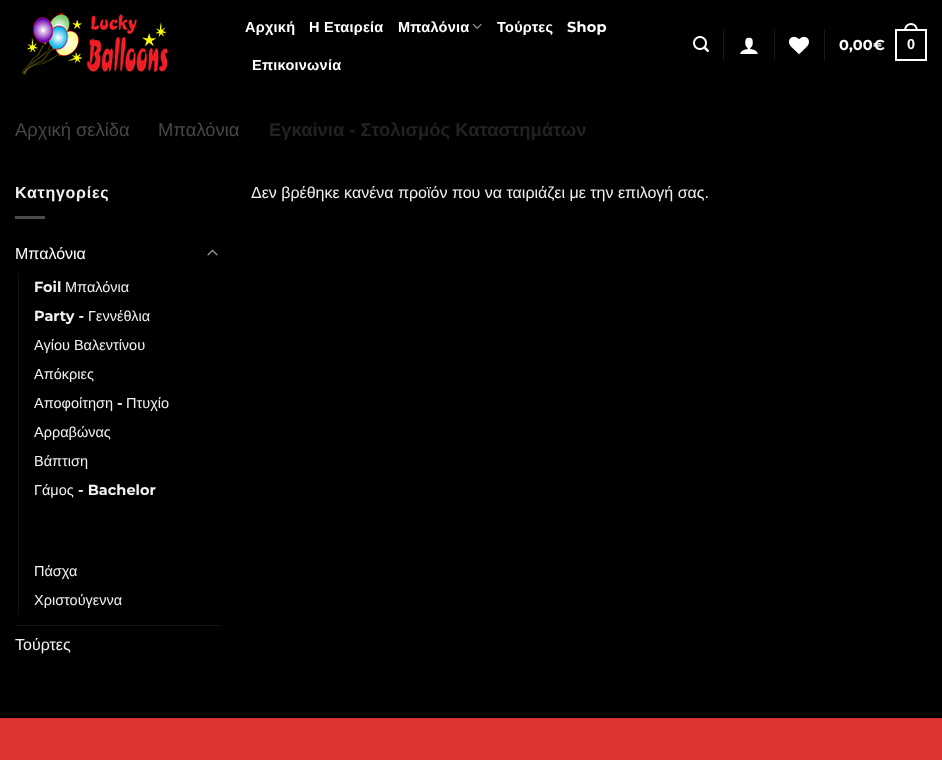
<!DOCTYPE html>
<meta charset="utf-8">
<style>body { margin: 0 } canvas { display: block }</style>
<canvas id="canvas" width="942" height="760"></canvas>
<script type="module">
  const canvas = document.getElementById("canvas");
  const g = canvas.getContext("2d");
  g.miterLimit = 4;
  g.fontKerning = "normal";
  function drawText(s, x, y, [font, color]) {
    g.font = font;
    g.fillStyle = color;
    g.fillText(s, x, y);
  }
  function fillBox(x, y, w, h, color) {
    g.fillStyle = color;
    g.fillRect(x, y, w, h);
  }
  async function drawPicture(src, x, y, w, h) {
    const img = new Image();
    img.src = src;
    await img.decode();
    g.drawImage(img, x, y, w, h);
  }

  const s1 = ["bold 14.5px Liberation Sans", "#FFFFFF"];
  const s2 = ["bold 14.5px Montserrat", "#FFFFFF"];
  const s3 = ["18.4px Liberation Sans", "#474747"];
  const s4 = ["bold 18.4px Liberation Sans", "#222222"];
  const s5 = ["bold 16px Liberation Sans", "#F1F1F1"];
  const s6 = ["16px Liberation Sans", "#FFFFFF"];
  const s7 = ["bold 14.5px Montserrat", "#F1F1F1"];
  const s8 = ["14.5px Liberation Sans", "#F1F1F1"];
  const s9 = ["16px Liberation Sans", "#F1F1F1"];

  fillBox(0, 0, 942, 760, "#000000");
  await drawPicture("pic1.png", 22, 13, 147, 62);
  g.letterSpacing = "0.25px";
  drawText("Αρχική", 245, 32, s1);
  drawText("Η Εταιρεία", 309, 32, s1);
  drawText("Μπαλόνια", 398, 32, s1);
  await drawPicture("pic2.png", 472, 23, 10, 6);
  drawText("Τούρτες", 497, 32, s1);
  drawText("Shop", 567, 32, s2);
  drawText("Επικοινωνία", 252, 70, s1);
  await drawPicture("pic3.png", 693, 36, 16, 16);
  fillBox(723, 30, 1, 30, "#1A1A1A");
  await drawPicture("pic4.png", 740, 37, 18, 17);
  fillBox(774, 30, 1, 30, "#1A1A1A");
  await drawPicture("pic5.png", 789, 36, 20, 18);
  fillBox(824, 30, 1, 30, "#1A1A1A");
  drawText("0,00€", 839, 50, s2);
  g.strokeStyle = "#FFFFFF";
  g.lineWidth = 2;
  g.strokeRect(896, 30, 30, 30);
  g.beginPath();
  g.moveTo(911, 23);
  g.bezierCurveTo(915.5, 23, 918, 27, 918, 31);
  g.lineTo(904, 31);
  g.bezierCurveTo(904, 27, 906.5, 23, 911, 23);
  g.closePath();
  g.moveTo(911, 25);
  g.bezierCurveTo(914.5, 25, 916, 28, 916, 31);
  g.lineTo(906, 31);
  g.bezierCurveTo(906, 28, 907.5, 25, 911, 25);
  g.closePath();
  g.fill("evenodd");
  drawText("0", 907, 49, s1);
  g.letterSpacing = "0px";
  drawText("Αρχική σελίδα", 15, 136, s3);
  drawText("Μπαλόνια", 158, 136, s3);
  drawText("Εγκαίνια - Στολισμός Καταστημάτων", 269, 136, s4);
  g.letterSpacing = "0.75px";
  drawText("Κατηγορίες", 15, 198, s5);
  fillBox(15, 216, 30, 3, "#4D4D4D");
  g.letterSpacing = "0px";
  drawText("Μπαλόνια", 15, 259, s6);
  await drawPicture("pic6.png", 207, 249, 11, 7);
  fillBox(18, 273, 1, 342, "#141414");
  drawText("Foil", 34, 292, s7);
  drawText("Μπαλόνια", 65, 292, s8);
  drawText("Party -", 34, 321, s7);
  drawText("Γεννέθλια", 88, 321, s8);
  drawText("Αγίου Βαλεντίνου", 34, 350, s8);
  drawText("Απόκριες", 34, 379, s8);
  drawText("Αποφοίτηση", 34, 408, s8);
  drawText("-", 117, 408, s7);
  drawText("Πτυχίο", 126, 408, s8);
  drawText("Αρραβώνας", 34, 437, s8);
  drawText("Βάπτιση", 34, 466, s8);
  drawText("Γάμος", 34, 495, s8);
  drawText("- Bachelor", 78, 495, s7);
  drawText("Πάσχα", 34, 576, s8);
  drawText("Χριστούγεννα", 34, 605, s8);
  fillBox(15, 625, 206, 1, "#141414");
  drawText("Τούρτες", 15, 650, s9);
  drawText("Δεν βρέθηκε κανένα προϊόν που να ταιριάζει με την επιλογή σας.", 251, 198, s9);
  fillBox(0, 719, 942, 41, "#DD3333");
  fillBox(0, 718, 942, 1, "#D23030");
</script>
